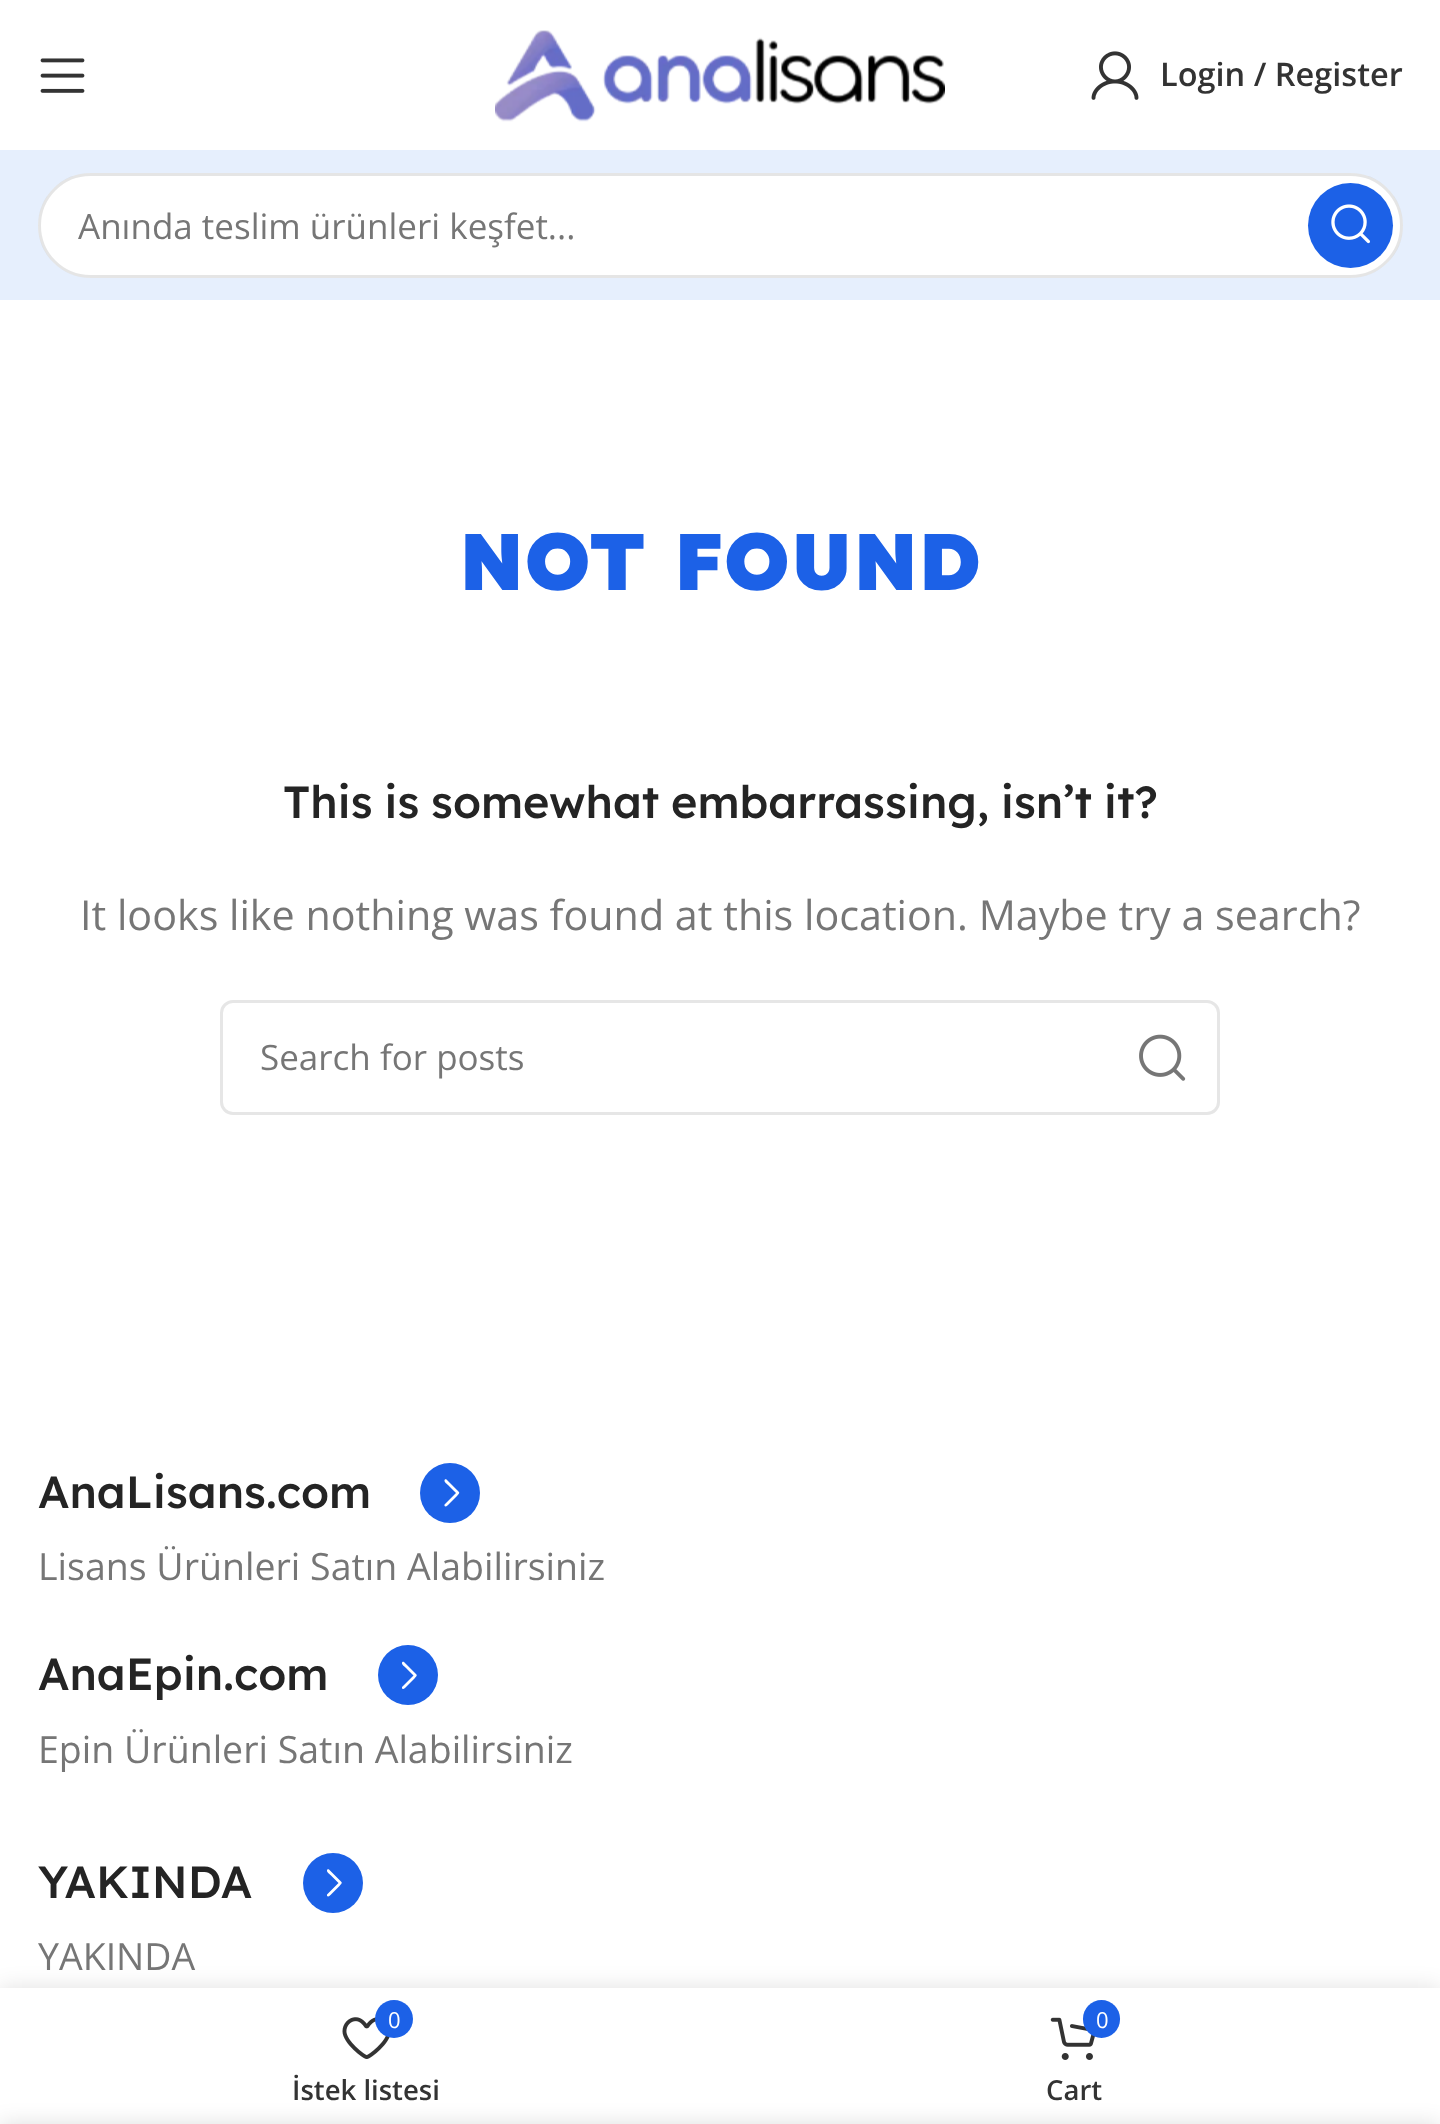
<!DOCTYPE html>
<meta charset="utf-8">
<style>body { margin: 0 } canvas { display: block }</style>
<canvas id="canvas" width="1440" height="2124"></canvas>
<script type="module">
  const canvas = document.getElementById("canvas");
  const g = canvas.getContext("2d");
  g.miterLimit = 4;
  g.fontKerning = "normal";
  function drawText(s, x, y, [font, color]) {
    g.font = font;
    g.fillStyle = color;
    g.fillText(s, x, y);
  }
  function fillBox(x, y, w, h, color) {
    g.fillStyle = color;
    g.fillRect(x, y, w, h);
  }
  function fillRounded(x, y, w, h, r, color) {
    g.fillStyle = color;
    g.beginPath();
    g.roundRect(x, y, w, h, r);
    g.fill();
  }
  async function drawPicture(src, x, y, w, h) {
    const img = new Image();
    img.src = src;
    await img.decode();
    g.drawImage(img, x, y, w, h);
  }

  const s1 = ["600 32.5px Open Sans", "#333333"];
  const s2 = ["35px Open Sans", "#767676"];
  const s3 = ["900 80px Lexend Deca", "#1C61E7"];
  const s4 = ["500 45px Lexend Deca", "#242424"];
  const s5 = ["41.25px Open Sans", "#767676"];
  const s6 = ["37.5px Open Sans", "#767676"];
  const s7 = ["22px Open Sans", "#FFFFFF"];
  const s8 = ["600 27.5px Open Sans", "#333333"];

  fillBox(0, 0, 1440, 2124, "#FFFFFF");
  await drawPicture("pic1.png", 40, 58, 45, 35);
  await drawPicture("pic2.png", 495, 30, 450, 92);
  await drawPicture("pic3.png", 1091, 51, 48, 49);
  drawText("Login / Register", 1160, 86, s1);
  fillBox(0, 150, 1440, 150, "#E6EFFD");
  fillRounded(38, 173, 1365, 105, 52.5, "#FFFFFF");
  g.beginPath();
  g.roundRect(39.5, 174.5, 1362, 102, 51);
  g.strokeStyle = "rgba(0, 0, 0, 0.1)";
  g.lineWidth = 3;
  g.stroke();
  drawText("Anında teslim ürünleri keşfet...", 78, 239, s2);
  g.fillStyle = "#1C61E7";
  g.beginPath();
  g.arc(1350.5, 225.5, 42.5, 0, Math.PI * 2);
  g.fill();
  await drawPicture("pic4.png", 1331, 204, 39, 40);
  drawText("NOT FOUND", 459, 590, s3);
  g.wordSpacing = "-1.5px";
  drawText("This is somewhat embarrassing, isn’t it?", 283, 818, s4);
  g.wordSpacing = "0px";
  drawText("It looks like nothing was found at this location. Maybe try a search?", 80, 930, s5);
  g.beginPath();
  g.roundRect(221.5, 1001.5, 997, 112, 11.5);
  g.strokeStyle = "#E6E6E6";
  g.stroke();
  drawText("Search for posts", 260, 1070, s2);
  await drawPicture("pic5.png", 1139, 1034, 47, 47);
  drawText("AnaLisans.com", 38, 1508, s4);
  g.fillStyle = "#1C61E7";
  g.beginPath();
  g.arc(450, 1493, 30, 0, Math.PI * 2);
  g.fill();
  g.fillStyle = "#FFFFFF";
  g.beginPath();
  g.moveTo(447, 1480);
  g.lineTo(446.5, 1479.5);
  g.bezierCurveTo(445.5, 1479, 444.5, 1479.5, 444.5, 1480.5);
  g.bezierCurveTo(444, 1482, 447.5, 1484.5, 448.5, 1485.5);
  g.lineTo(456, 1493);
  g.lineTo(444.5, 1504.5);
  g.bezierCurveTo(444.5, 1505, 444.5, 1505.5, 444.5, 1506);
  g.bezierCurveTo(446, 1507.5, 448, 1505, 449, 1504);
  g.lineTo(457, 1496);
  g.bezierCurveTo(460, 1492.5, 460, 1493, 457, 1490);
  g.closePath();
  g.fill();
  drawText("Lisans Ürünleri Satın Alabilirsiniz", 38, 1580, s6);
  drawText("AnaEpin.com", 38, 1690, s4);
  g.fillStyle = "#1C61E7";
  g.beginPath();
  g.arc(408, 1675, 30, 0, Math.PI * 2);
  g.fill();
  g.fillStyle = "#FFFFFF";
  g.beginPath();
  g.moveTo(404.5, 1662.5);
  g.lineTo(404, 1662);
  g.bezierCurveTo(403, 1661.5, 402, 1662, 402, 1663);
  g.bezierCurveTo(401.5, 1664.5, 405, 1667, 406, 1668);
  g.lineTo(413.5, 1675.5);
  g.lineTo(402, 1687);
  g.bezierCurveTo(402, 1687.5, 402, 1688, 402, 1688.5);
  g.bezierCurveTo(403.5, 1690, 405.5, 1687.5, 406.5, 1686.5);
  g.lineTo(414.5, 1678.5);
  g.bezierCurveTo(417.5, 1675, 417.5, 1675.5, 414.5, 1672.5);
  g.closePath();
  g.fill();
  drawText("Epin Ürünleri Satın Alabilirsiniz", 38, 1763, s6);
  drawText("YAKINDA", 38, 1898, s4);
  g.fillStyle = "#1C61E7";
  g.beginPath();
  g.arc(333, 1883, 30, 0, Math.PI * 2);
  g.fill();
  g.fillStyle = "#FFFFFF";
  g.beginPath();
  g.moveTo(329.5, 1870);
  g.lineTo(329, 1869.5);
  g.bezierCurveTo(328, 1869, 327, 1869.5, 327, 1870.5);
  g.bezierCurveTo(326.5, 1872, 330, 1874.5, 331, 1875.5);
  g.lineTo(338.5, 1883);
  g.lineTo(327, 1894.5);
  g.bezierCurveTo(327, 1895, 327, 1895.5, 327, 1896);
  g.bezierCurveTo(328.5, 1897.5, 330.5, 1895, 331.5, 1894);
  g.lineTo(339.5, 1886);
  g.bezierCurveTo(342.5, 1882.5, 342.5, 1883, 339.5, 1880);
  g.closePath();
  g.fill();
  drawText("YAKINDA", 38, 1970, s6);
  g.fillStyle = "rgba(0, 0, 0, 0.12)";
  g.filter = "blur(11px)";
  g.beginPath();
  g.rect(0, 1988, 1440, 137);
  g.fill();
  g.filter = "none";
  fillBox(0, 1988, 1440, 136, "#FFFFFF");
  await drawPicture("pic6.png", 342, 2017, 48, 42);
  g.fillStyle = "#1C61E7";
  g.beginPath();
  g.arc(394, 2019, 19, 0, Math.PI * 2);
  g.fill();
  drawText("0", 388, 2028, s7);
  drawText("İstek listesi", 292, 2100, s8);
  await drawPicture("pic7.png", 1050, 2017, 45, 43);
  fillRounded(1083, 2000, 37, 38, 18.5, "#1C61E7");
  drawText("0", 1096, 2028, s7);
  drawText("Cart", 1046, 2100, s8);
  g.fillStyle = "rgba(0, 0, 0, 0.14)";
  g.filter = "blur(11px)";
  g.beginPath();
  g.rect(0, 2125, 1440, 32);
  g.fill();
  g.filter = "none";
</script>
